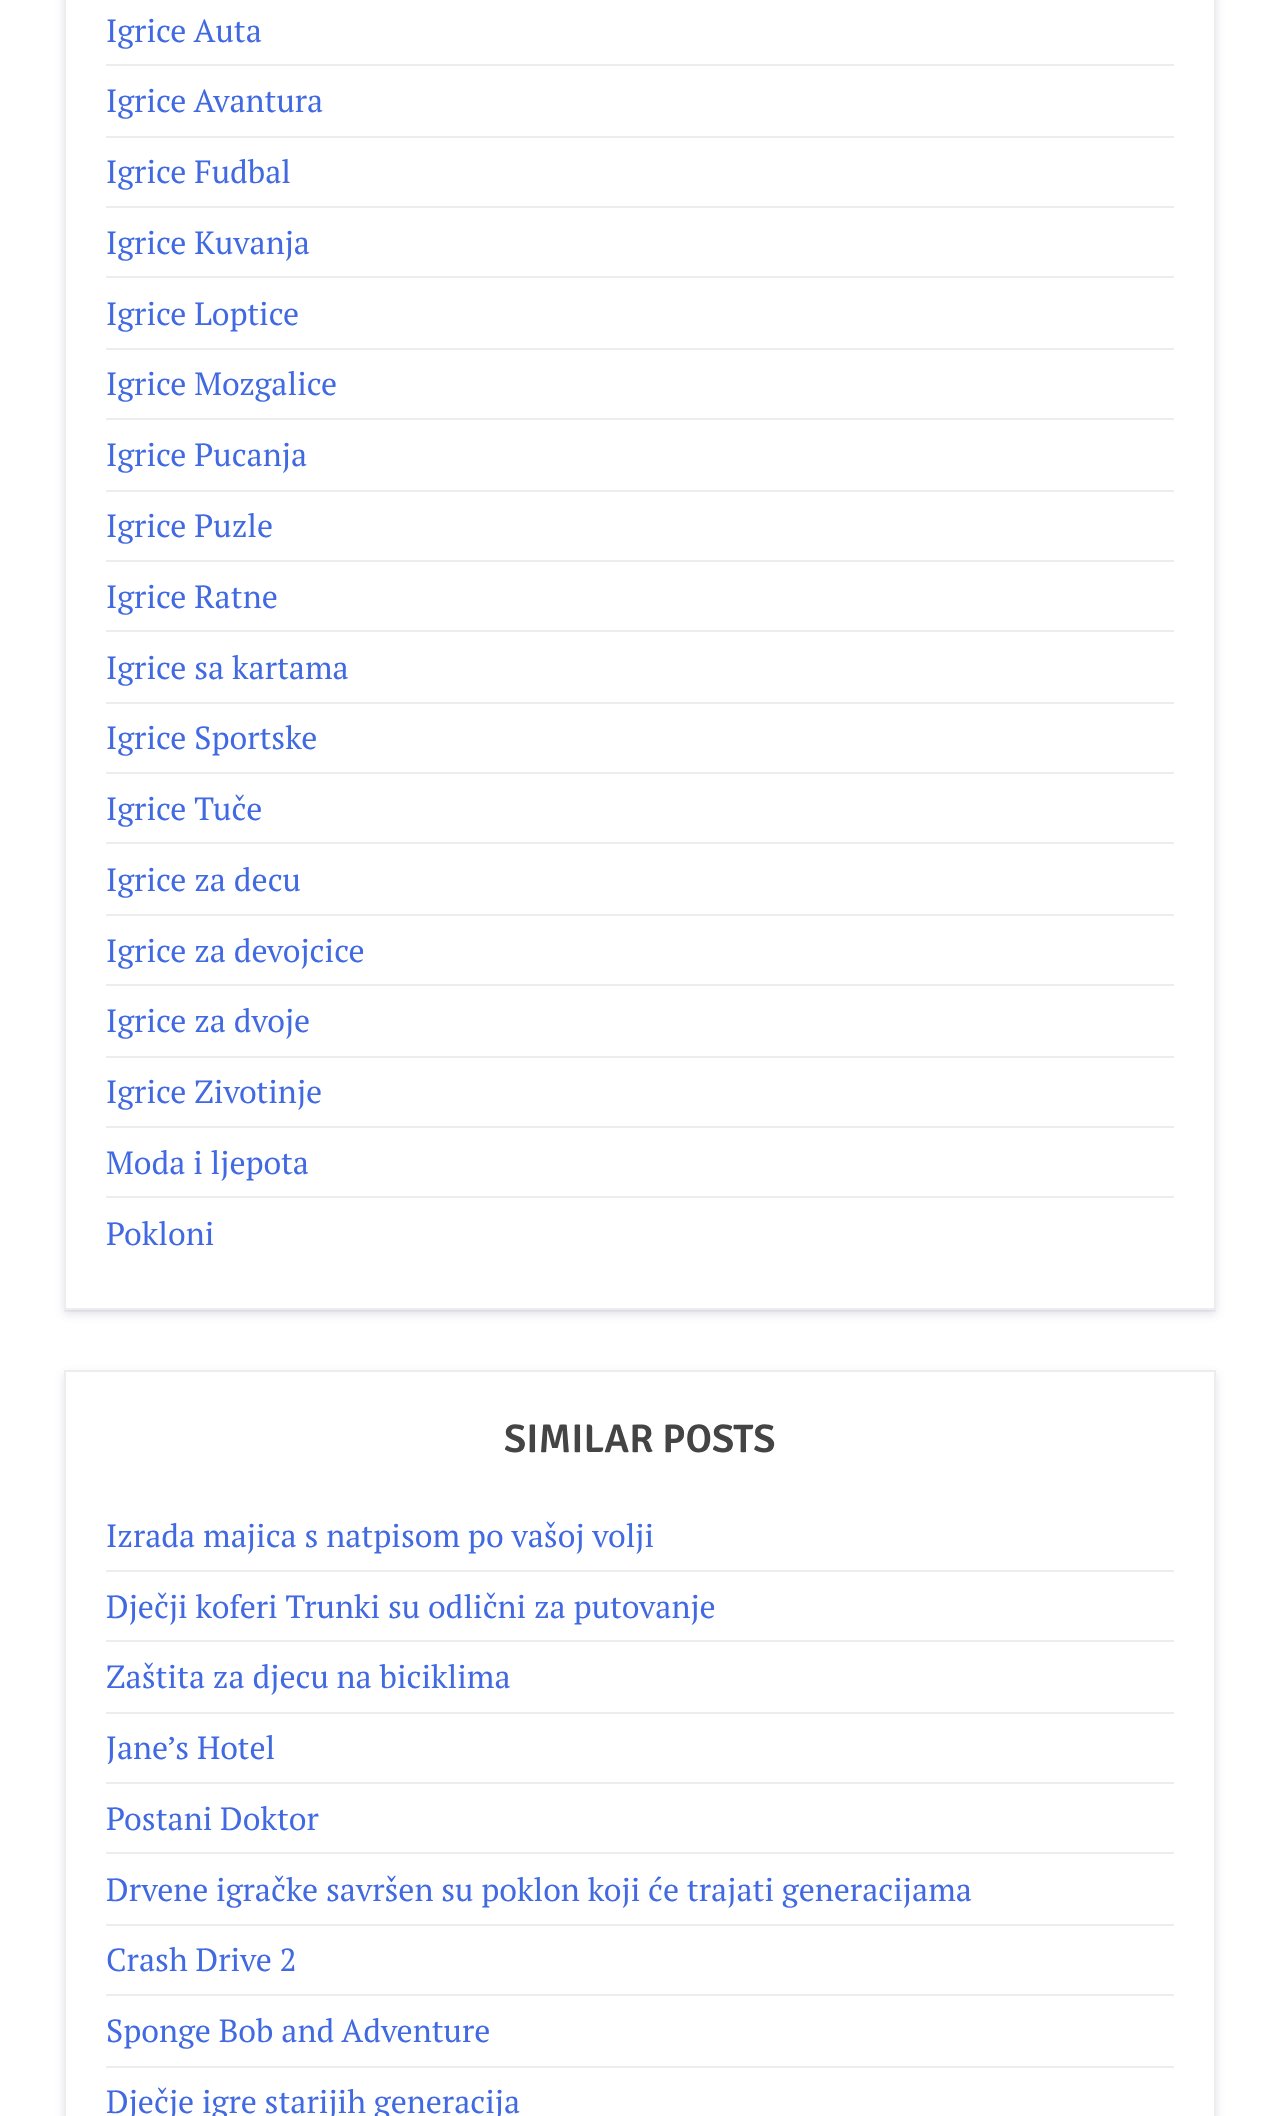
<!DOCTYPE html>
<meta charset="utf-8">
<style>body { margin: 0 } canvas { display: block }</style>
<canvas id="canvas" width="1280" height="2116"></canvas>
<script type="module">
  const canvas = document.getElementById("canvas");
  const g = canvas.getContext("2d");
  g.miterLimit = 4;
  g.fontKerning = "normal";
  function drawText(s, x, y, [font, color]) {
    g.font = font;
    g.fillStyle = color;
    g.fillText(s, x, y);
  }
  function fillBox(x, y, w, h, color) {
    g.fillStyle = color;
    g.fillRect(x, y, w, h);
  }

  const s1 = ["32px PT Serif", "#4169E1"];
  const s2 = ["600 40px Signika", "#444444"];

  fillBox(0, 0, 1280, 2116, "#FFFFFF");
  g.save();
  g.beginPath();
  g.rect(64, 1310, 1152, 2);
  g.clip();
  g.fillStyle = "rgba(0, 0, 0, 0.05)";
  g.filter = "blur(1px)";
  g.beginPath();
  g.rect(64, -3, 1152, 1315);
  g.fill();
  g.filter = "none";
  g.restore();
  g.save();
  g.beginPath();
  g.moveTo(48, 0);
  g.lineTo(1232, 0);
  g.lineTo(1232, 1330);
  g.lineTo(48, 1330);
  g.closePath();
  g.moveTo(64, -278);
  g.lineTo(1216, -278);
  g.lineTo(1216, 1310);
  g.lineTo(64, 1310);
  g.closePath();
  g.clip("evenodd");
  g.fillStyle = "rgba(50, 50, 105, 0.15)";
  g.filter = "blur(5px)";
  g.beginPath();
  g.rect(64, -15, 1152, 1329);
  g.fill();
  g.filter = "none";
  g.restore();
  g.strokeStyle = "#EDEDED";
  g.lineWidth = 2;
  g.strokeRect(65, -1, 1150, 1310);
  fillBox(106, 64, 1068, 2, "#EDEDED");
  drawText("Igrice Auta", 106, 42, s1);
  fillBox(106, 136, 1068, 2, "#EDEDED");
  drawText("Igrice Avantura", 106, 112, s1);
  fillBox(106, 206, 1068, 2, "#EDEDED");
  drawText("Igrice Fudbal", 106, 183, s1);
  fillBox(106, 276, 1068, 2, "#EDEDED");
  drawText("Igrice Kuvanja", 106, 254, s1);
  fillBox(106, 348, 1068, 2, "#EDEDED");
  drawText("Igrice Loptice", 106, 325, s1);
  fillBox(106, 418, 1068, 2, "#EDEDED");
  drawText("Igrice Mozgalice", 106, 395, s1);
  fillBox(106, 490, 1068, 2, "#EDEDED");
  drawText("Igrice Pucanja", 106, 466, s1);
  fillBox(106, 560, 1068, 2, "#EDEDED");
  drawText("Igrice Puzle", 106, 537, s1);
  fillBox(106, 630, 1068, 2, "#EDEDED");
  drawText("Igrice Ratne", 106, 608, s1);
  fillBox(106, 702, 1068, 2, "#EDEDED");
  drawText("Igrice sa kartama", 106, 679, s1);
  fillBox(106, 772, 1068, 2, "#EDEDED");
  drawText("Igrice Sportske", 106, 749, s1);
  fillBox(106, 842, 1068, 2, "#EDEDED");
  drawText("Igrice Tuče", 106, 820, s1);
  fillBox(106, 914, 1068, 2, "#EDEDED");
  drawText("Igrice za decu", 106, 891, s1);
  fillBox(106, 984, 1068, 2, "#EDEDED");
  drawText("Igrice za devojcice", 106, 962, s1);
  fillBox(106, 1056, 1068, 2, "#EDEDED");
  drawText("Igrice za dvoje", 106, 1032, s1);
  fillBox(106, 1126, 1068, 2, "#EDEDED");
  drawText("Igrice Zivotinje", 106, 1103, s1);
  fillBox(106, 1196, 1068, 2, "#EDEDED");
  drawText("Moda i ljepota", 106, 1174, s1);
  drawText("Pokloni", 106, 1245, s1);
  g.save();
  g.beginPath();
  g.moveTo(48, 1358);
  g.lineTo(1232, 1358);
  g.lineTo(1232, 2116);
  g.lineTo(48, 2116);
  g.closePath();
  g.moveTo(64, 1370);
  g.lineTo(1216, 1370);
  g.lineTo(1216, 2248);
  g.lineTo(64, 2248);
  g.closePath();
  g.clip("evenodd");
  g.fillStyle = "rgba(50, 50, 105, 0.15)";
  g.filter = "blur(5px)";
  g.beginPath();
  g.rect(64, 1374, 1152, 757);
  g.fill();
  g.filter = "none";
  g.restore();
  g.strokeRect(65, 1371, 1150, 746);
  drawText("SIMILAR POSTS", 504, 1452, s2);
  fillBox(106, 1570, 1068, 2, "#EDEDED");
  drawText("Izrada majica s natpisom po vašoj volji", 106, 1547, s1);
  fillBox(106, 1640, 1068, 2, "#EDEDED");
  drawText("Dječji koferi Trunki su odlični za putovanje", 106, 1618, s1);
  fillBox(106, 1712, 1068, 2, "#EDEDED");
  drawText("Zaštita za djecu na biciklima", 106, 1688, s1);
  fillBox(106, 1782, 1068, 2, "#EDEDED");
  drawText("Jane’s Hotel", 106, 1759, s1);
  fillBox(106, 1852, 1068, 2, "#EDEDED");
  drawText("Postani Doktor", 106, 1830, s1);
  fillBox(106, 1924, 1068, 2, "#EDEDED");
  drawText("Drvene igračke savršen su poklon koji će trajati generacijama", 106, 1901, s1);
  fillBox(106, 1994, 1068, 2, "#EDEDED");
  drawText("Crash Drive 2", 106, 1971, s1);
  fillBox(106, 2066, 1068, 2, "#EDEDED");
  drawText("Sponge Bob and Adventure", 106, 2042, s1);
  drawText("Dječje igre starijih generacija", 106, 2113, s1);
</script>
